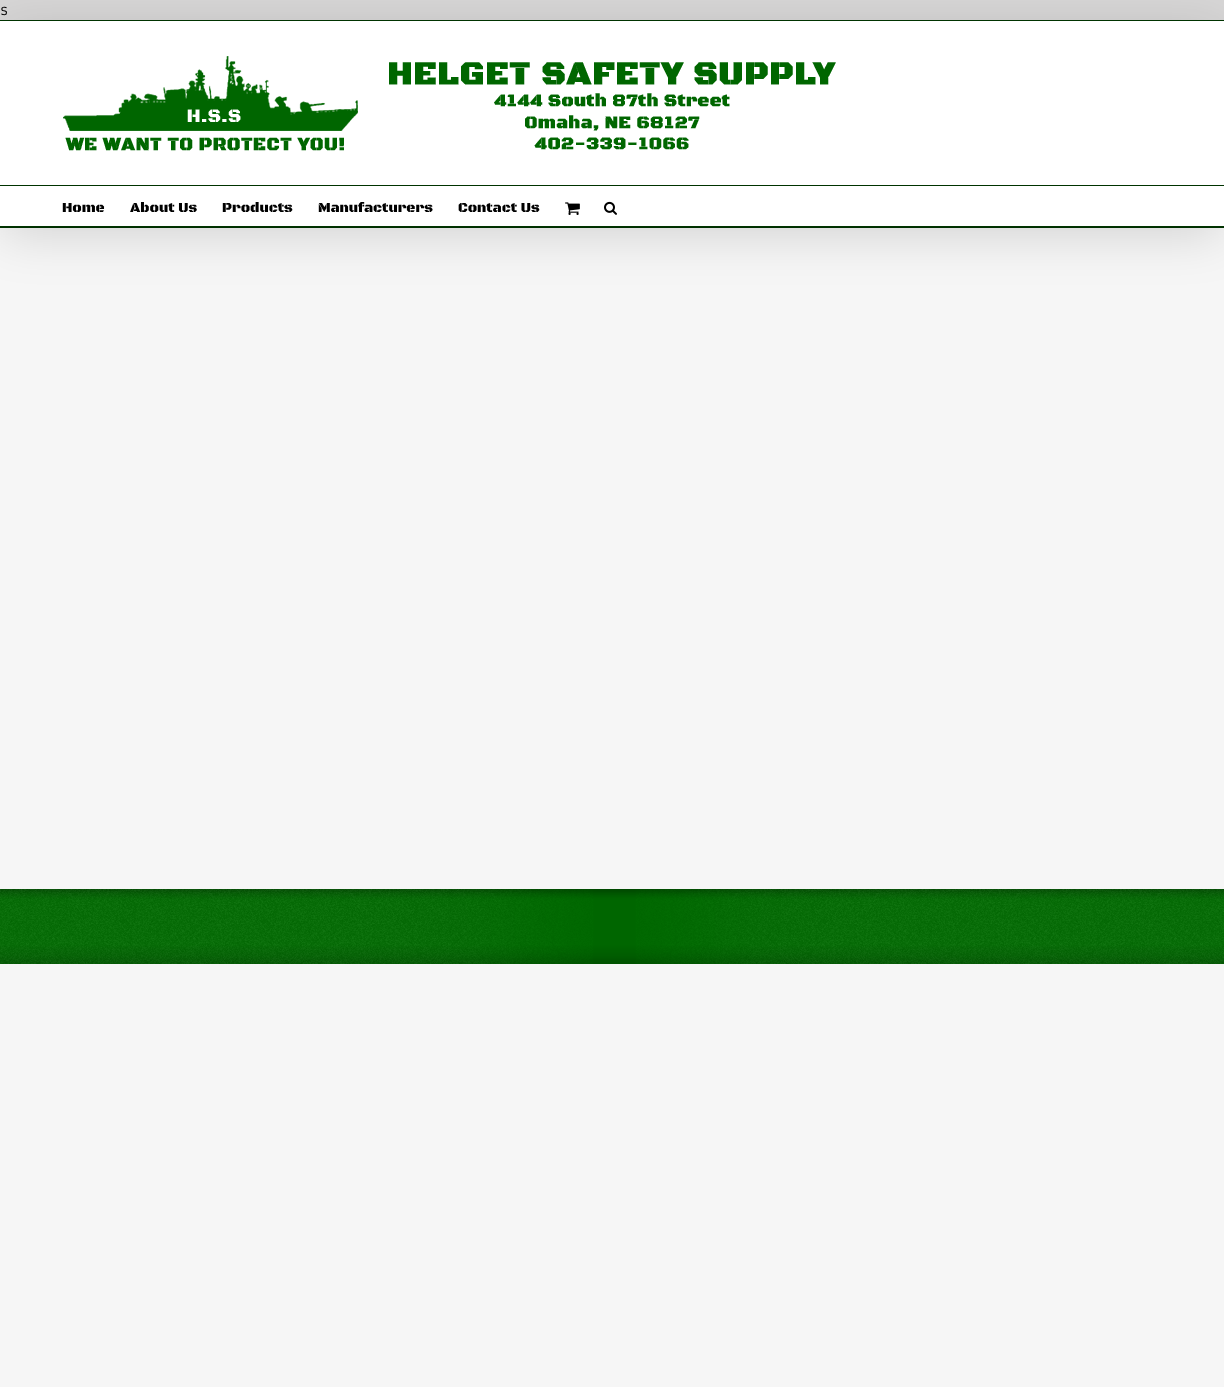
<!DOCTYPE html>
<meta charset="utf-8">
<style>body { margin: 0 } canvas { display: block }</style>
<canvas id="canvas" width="1224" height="1387"></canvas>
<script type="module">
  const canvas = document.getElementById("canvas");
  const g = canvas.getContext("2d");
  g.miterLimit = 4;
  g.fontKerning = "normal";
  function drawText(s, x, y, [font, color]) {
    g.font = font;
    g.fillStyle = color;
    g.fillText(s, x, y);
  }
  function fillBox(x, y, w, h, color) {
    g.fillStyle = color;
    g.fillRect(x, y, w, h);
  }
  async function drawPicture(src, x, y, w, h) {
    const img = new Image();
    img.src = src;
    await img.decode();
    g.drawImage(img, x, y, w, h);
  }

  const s1 = ["14px Armata", "#000000"];
  const s2 = ["900 14px Black Ops One", "#000000"];

  fillBox(0, 0, 1224, 1387, "#D7D6D6");
  drawText("s", 0, 15, s1);
  fillBox(0, 21, 1224, 205, "#FFFFFF");
  fillBox(0, 228, 1224, 1159, "#F6F6F6");
  fillBox(0, 227, 1224, 1, "#003300");
  g.save();
  g.beginPath();
  g.moveTo(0, 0);
  g.lineTo(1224, 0);
  g.lineTo(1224, 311);
  g.lineTo(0, 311);
  g.closePath();
  g.moveTo(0, 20);
  g.lineTo(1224, 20);
  g.lineTo(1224, 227);
  g.lineTo(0, 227);
  g.closePath();
  g.clip("evenodd");
  g.fillStyle = "rgba(0, 0, 0, 0.14)";
  g.filter = "blur(25px)";
  g.beginPath();
  g.rect(2, 32, 1220, 203);
  g.fill();
  g.filter = "none";
  g.restore();
  fillBox(0, 20, 1224, 1, "#003300");
  fillBox(0, 185, 1224, 1, "#003300");
  await drawPicture("pic1.png", 63, 56, 773, 95);
  fillBox(0, 226, 1224, 1, "#003300");
  drawText("Home", 62, 212, s2);
  drawText("About Us", 130, 212, s2);
  drawText("Products", 222, 212, s2);
  drawText("Manufacturers", 318, 212, s2);
  drawText("Contact Us", 458, 212, s2);
  await drawPicture("pic2.png", 565, 202, 15, 13);
  await drawPicture("pic3.png", 604, 201, 13, 14);
  await drawPicture("pic4.png", 0, 889, 1224, 75);
</script>
